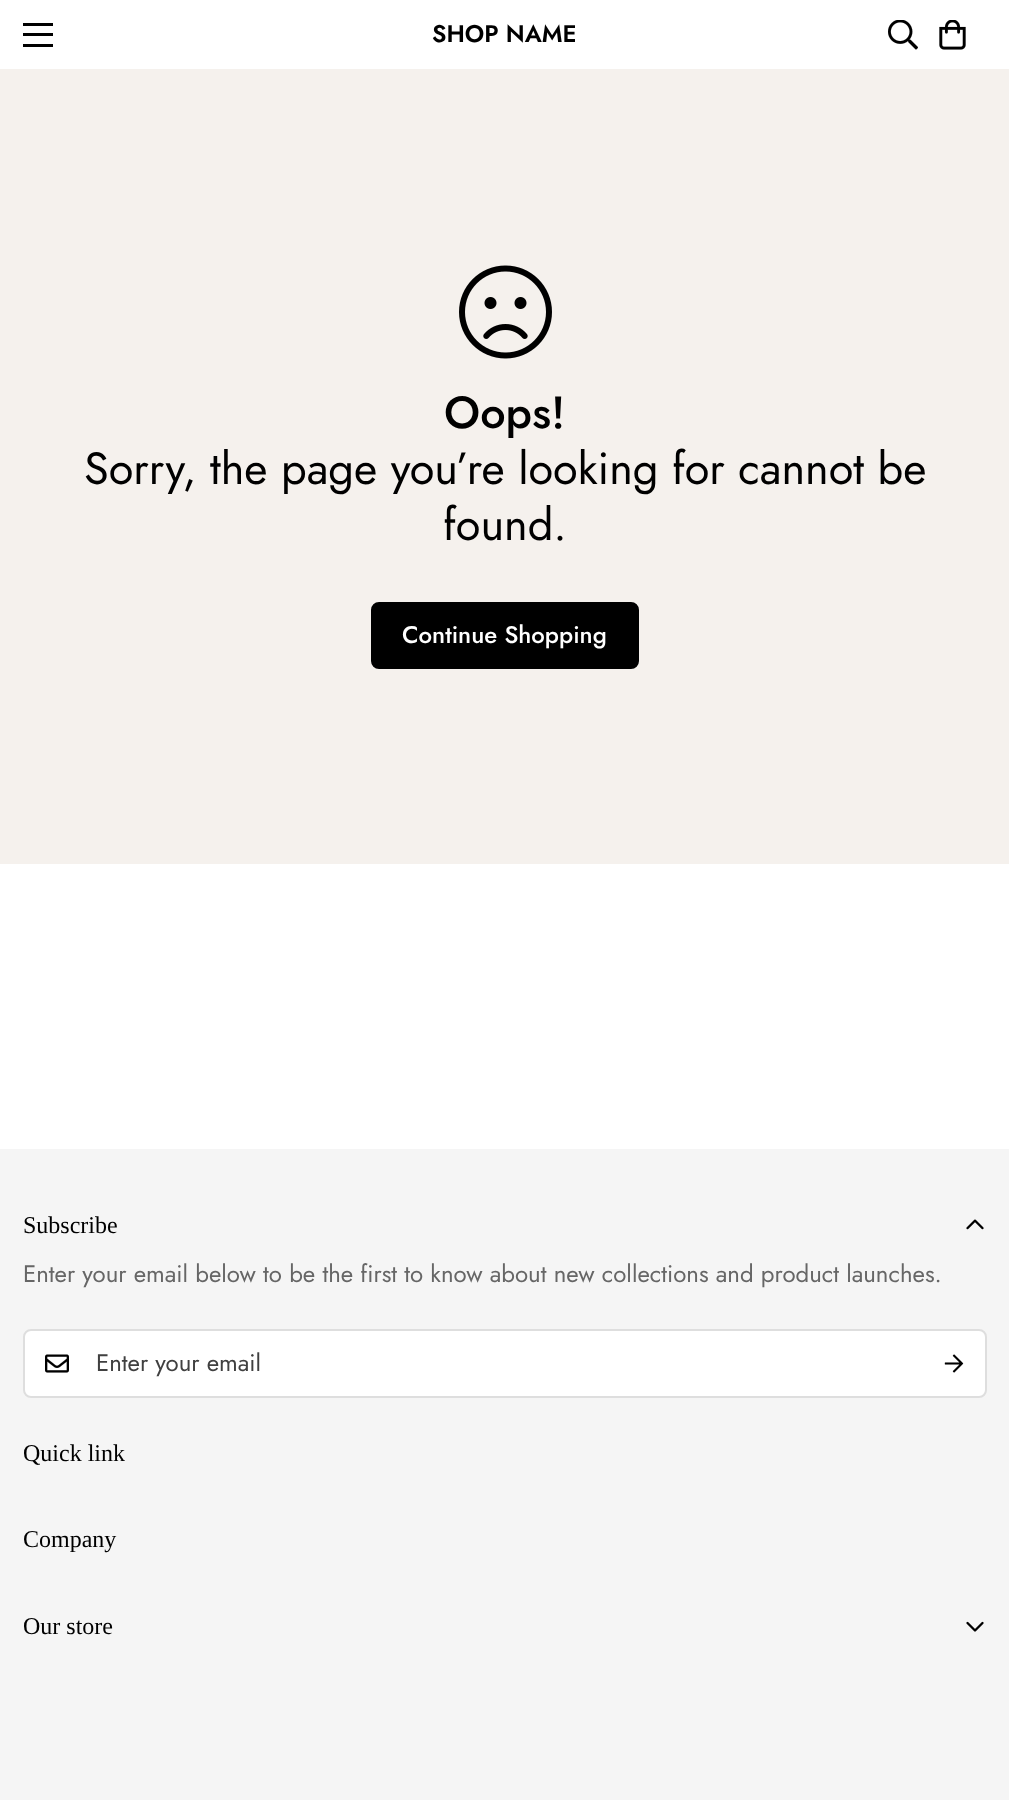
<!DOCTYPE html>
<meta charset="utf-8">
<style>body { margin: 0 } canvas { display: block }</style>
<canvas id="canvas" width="1009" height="1800"></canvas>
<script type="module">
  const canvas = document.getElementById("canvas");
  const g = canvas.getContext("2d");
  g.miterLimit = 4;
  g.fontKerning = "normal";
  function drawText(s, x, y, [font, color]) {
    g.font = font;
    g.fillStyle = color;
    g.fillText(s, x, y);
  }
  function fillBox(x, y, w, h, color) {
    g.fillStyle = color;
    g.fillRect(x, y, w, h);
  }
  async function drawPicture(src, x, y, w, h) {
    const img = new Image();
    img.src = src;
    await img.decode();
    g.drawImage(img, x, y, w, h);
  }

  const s1 = ["600 24px Jost", "#000000"];
  const s2 = ["500 45px Jost", "#000000"];
  const s3 = ["45px Jost", "#000000"];
  const s4 = ["500 24px Jost", "#FFFFFF"];
  const s5 = ["24px Liberation Serif", "#000000"];
  const s6 = ["24px Jost", "#666666"];
  const s7 = ["24px Jost", "#404040"];

  fillBox(0, 0, 1009, 1800, "#FFFFFF");
  fillBox(23, 33, 30, 3, "#000000");
  fillBox(23, 23, 30, 3, "#000000");
  fillBox(23, 44, 30, 3, "#000000");
  drawText("SHOP NAME", 432, 42, s1);
  await drawPicture("pic1.png", 888, 20, 30, 30);
  await drawPicture("pic2.png", 939, 20, 27, 30);
  fillBox(0, 69, 1009, 795, "#F5F1ED");
  await drawPicture("pic3.png", 459, 265, 93, 94);
  drawText("Oops!", 444, 428, s2);
  drawText("Sorry, the page you’re looking for cannot be", 84, 484, s3);
  drawText("found.", 443, 540, s3);
  g.beginPath();
  g.roundRect(372, 603, 266, 65, 7);
  g.fill();
  g.strokeStyle = "#000000";
  g.lineWidth = 2;
  g.stroke();
  drawText("Continue Shopping", 402, 643, s4);
  fillBox(0, 1149, 1009, 651, "#F5F5F5");
  drawText("Subscribe", 23, 1233, s5);
  await drawPicture("pic4.png", 966, 1219, 18, 11);
  drawText("Enter your email below to be the first to know about new collections and product launches.", 23, 1282, s6);
  g.fillStyle = "#FFFFFF";
  g.beginPath();
  g.roundRect(24, 1330, 962, 67, 7);
  g.fill();
  g.strokeStyle = "#DEDEDE";
  g.stroke();
  await drawPicture("pic5.png", 45, 1354, 24, 19);
  drawText("Enter your email", 96, 1371, s7);
  await drawPicture("pic6.png", 944, 1354, 20, 19);
  drawText("Quick link", 23, 1461, s5);
  drawText("Company", 23, 1547, s5);
  drawText("Our store", 23, 1634, s5);
  await drawPicture("pic7.png", 966, 1621, 18, 11);
</script>
